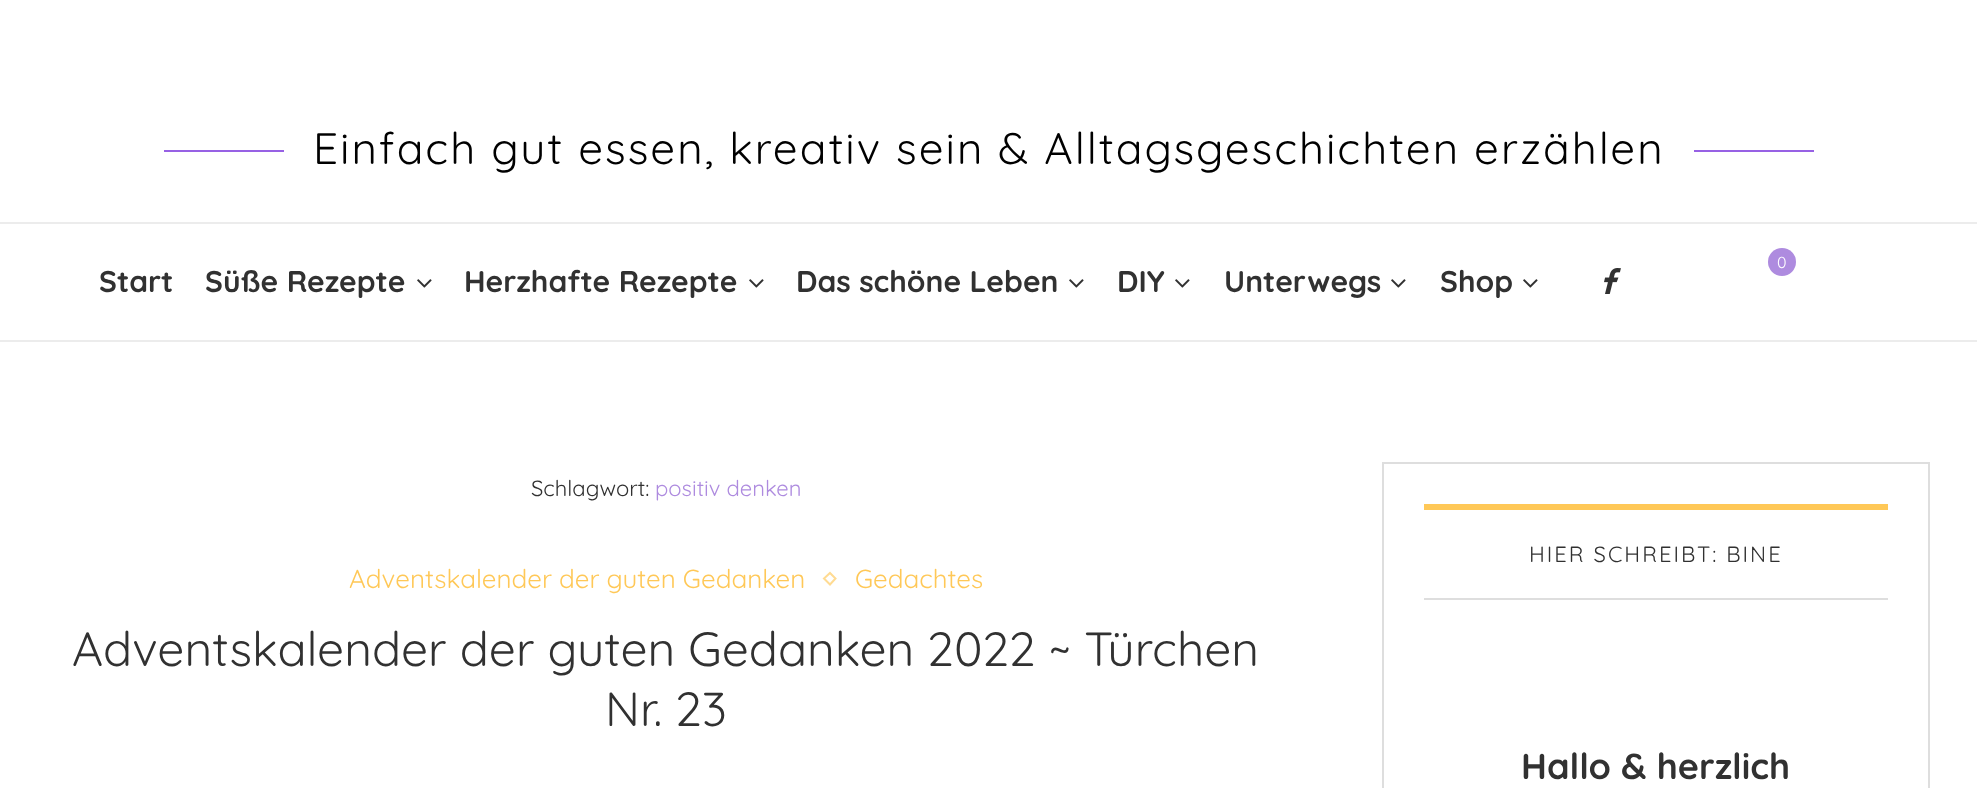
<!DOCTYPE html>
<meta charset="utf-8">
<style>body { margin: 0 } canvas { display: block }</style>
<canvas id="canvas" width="1977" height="788"></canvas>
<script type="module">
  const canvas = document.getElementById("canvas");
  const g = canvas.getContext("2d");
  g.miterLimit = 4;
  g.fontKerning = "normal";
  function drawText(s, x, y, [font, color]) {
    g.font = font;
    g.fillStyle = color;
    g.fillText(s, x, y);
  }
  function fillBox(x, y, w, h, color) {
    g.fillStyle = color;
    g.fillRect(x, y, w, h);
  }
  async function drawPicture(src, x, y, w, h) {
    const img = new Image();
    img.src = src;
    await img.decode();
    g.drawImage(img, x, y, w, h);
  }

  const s1 = ["44px Quicksand", "#000000"];
  const s2 = ["16px Quicksand", "#FFFFFF"];
  const s3 = ["bold 30px Quicksand", "#313131"];
  const s4 = ["22px Quicksand", "#313131"];
  const s5 = ["22px Quicksand", "#AE8BDF"];
  const s6 = ["26px Quicksand", "#FFC857"];
  const s7 = ["48px Quicksand", "#313131"];
  const s8 = ["bold 36px Quicksand", "#313131"];

  fillBox(0, 0, 1977, 788, "#FFFFFF");
  fillBox(164, 150, 120, 2, "#9761E4");
  g.letterSpacing = "2px";
  drawText("Einfach gut essen, kreativ sein & Alltagsgeschichten erzählen", 313, 164, s1);
  fillBox(1694, 150, 120, 2, "#9761E4");
  fillBox(0, 222, 1977, 2, "#ECECEC");
  fillBox(0, 340, 1977, 2, "#ECECEC");
  g.fillStyle = "#AE8BDF";
  g.beginPath();
  g.arc(1782, 262, 14, 0, Math.PI * 2);
  g.fill();
  g.letterSpacing = "0px";
  drawText("0", 1777, 268, s2);
  drawText("Start", 99, 292, s3);
  drawText("Süße Rezepte", 205, 292, s3);
  await drawPicture("pic1.png", 417, 279, 15, 9);
  drawText("Herzhafte Rezepte", 464, 292, s3);
  await drawPicture("pic1.png", 749, 279, 15, 9);
  drawText("Das schöne Leben", 796, 292, s3);
  await drawPicture("pic1.png", 1069, 279, 15, 9);
  drawText("DIY", 1117, 292, s3);
  await drawPicture("pic1.png", 1175, 279, 15, 9);
  drawText("Unterwegs", 1224, 292, s3);
  await drawPicture("pic1.png", 1391, 279, 15, 9);
  drawText("Shop", 1440, 292, s3);
  await drawPicture("pic1.png", 1523, 279, 15, 9);
  await drawPicture("pic2.png", 1604, 268, 17, 26);
  drawText("Schlagwort:", 531, 496, s4);
  drawText("positiv denken", 655, 496, s5);
  drawText("Adventskalender der guten Gedanken", 349, 588, s6);
  g.beginPath();
  g.moveTo(830, 573);
  g.lineTo(835.5, 578.5);
  g.lineTo(830, 584.5);
  g.lineTo(824, 578.5);
  g.closePath();
  g.strokeStyle = "#FFDB92";
  g.lineWidth = 2;
  g.stroke();
  drawText("Gedachtes", 855, 588, s6);
  drawText("Adventskalender der guten Gedanken 2022 ~ Türchen", 72, 666, s7);
  drawText("Nr. 23", 605, 726, s7);
  g.strokeStyle = "#DEDEDE";
  g.strokeRect(1383, 463, 546, 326);
  fillBox(1424, 504, 464, 6, "#FFC857");
  fillBox(1424, 598, 464, 2, "#DEDEDE");
  g.letterSpacing = "2px";
  drawText("HIER SCHREIBT: BINE", 1529, 562, s4);
  g.letterSpacing = "0px";
  drawText("Hallo & herzlich", 1521, 779, s8);
</script>
